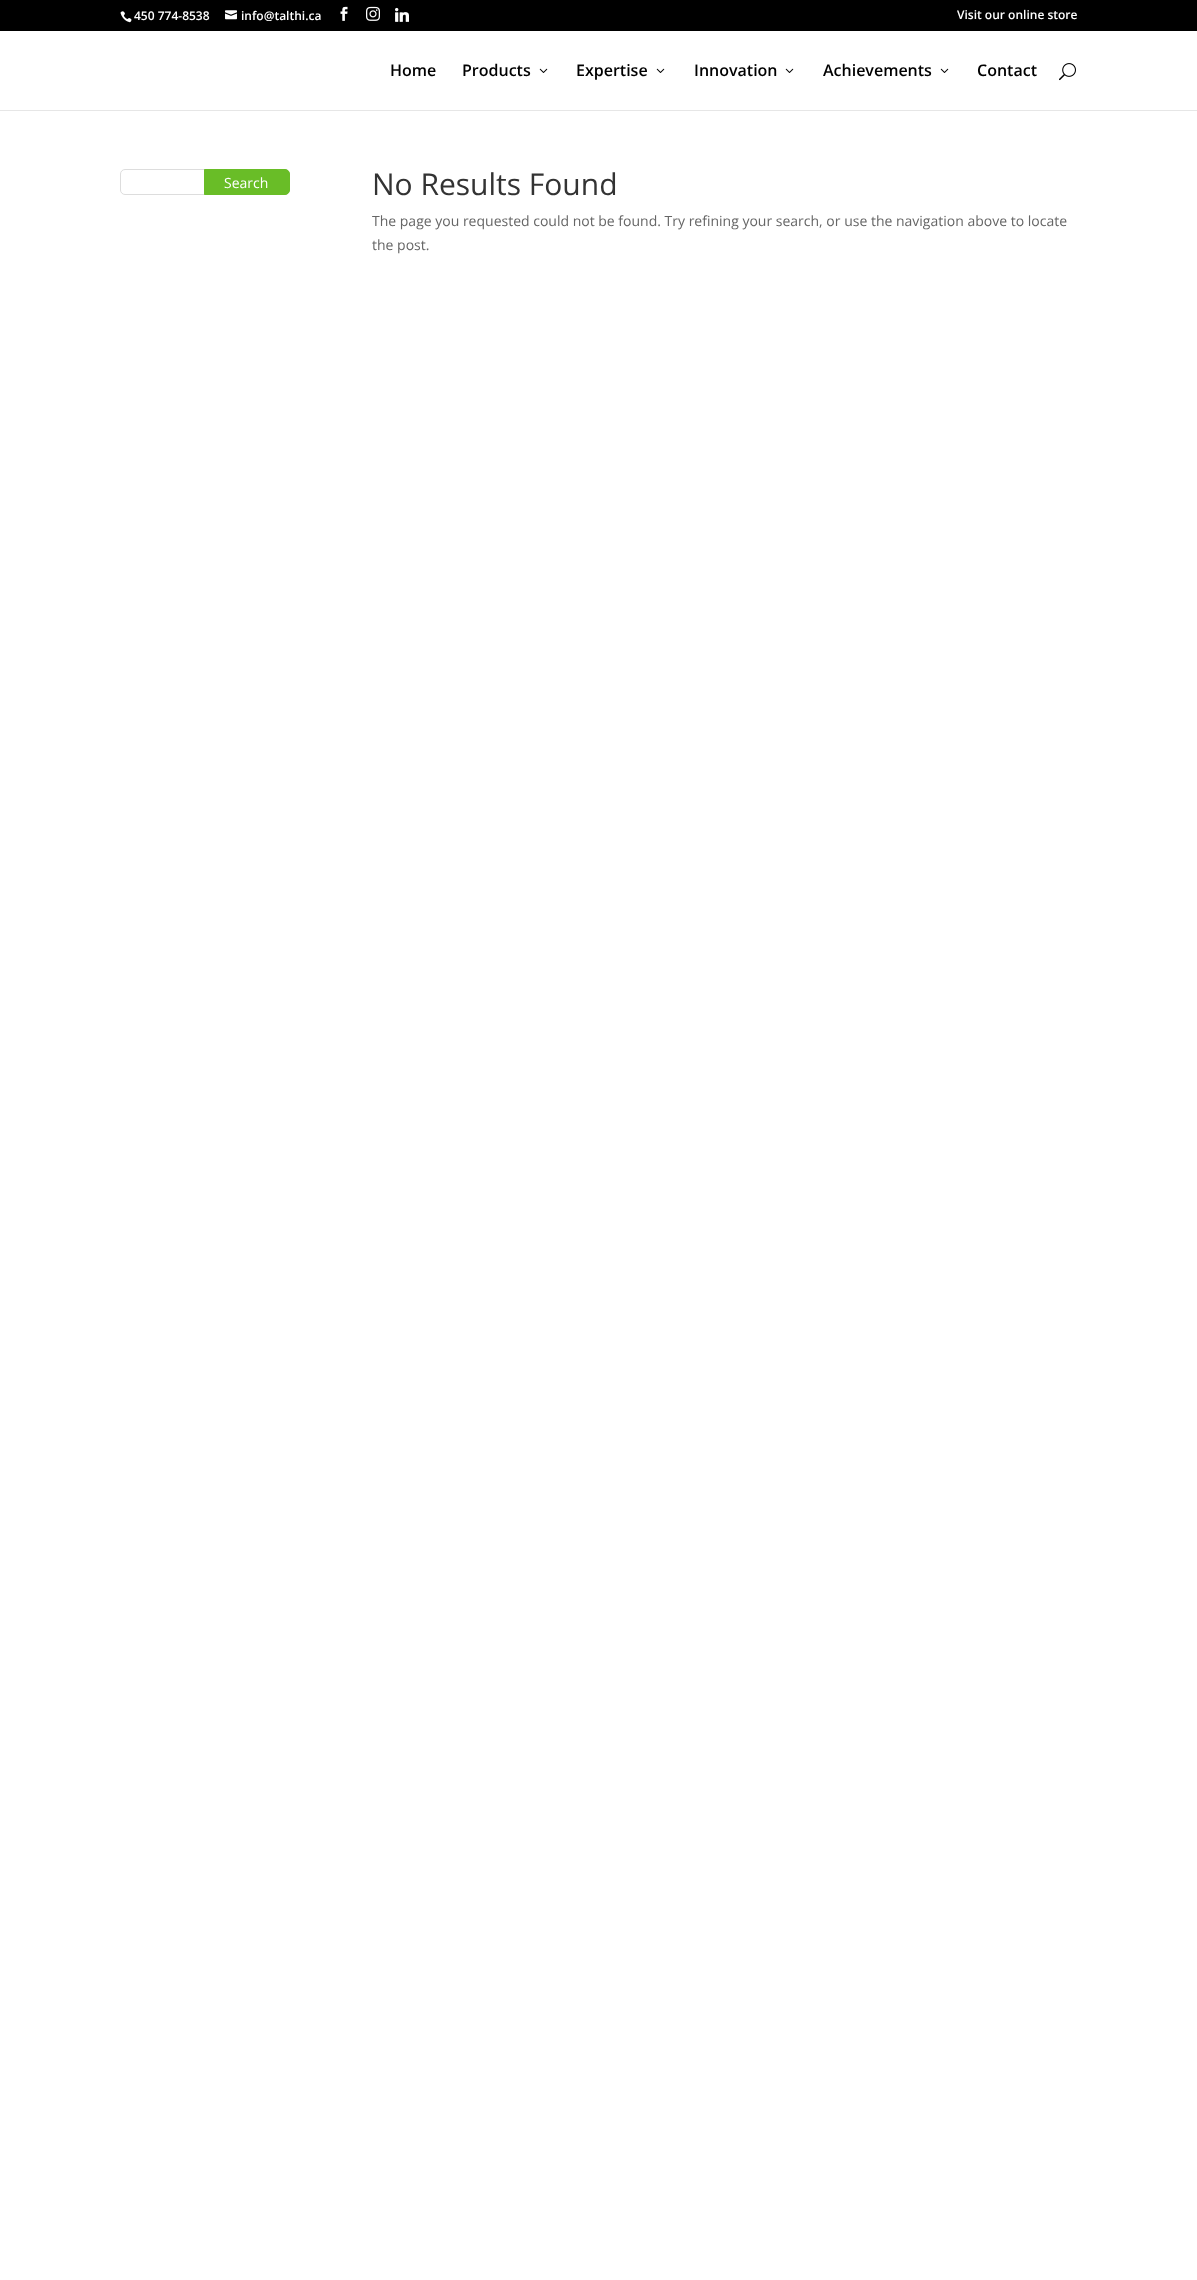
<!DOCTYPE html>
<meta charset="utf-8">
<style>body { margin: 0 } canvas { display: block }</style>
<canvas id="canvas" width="1197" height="2280"></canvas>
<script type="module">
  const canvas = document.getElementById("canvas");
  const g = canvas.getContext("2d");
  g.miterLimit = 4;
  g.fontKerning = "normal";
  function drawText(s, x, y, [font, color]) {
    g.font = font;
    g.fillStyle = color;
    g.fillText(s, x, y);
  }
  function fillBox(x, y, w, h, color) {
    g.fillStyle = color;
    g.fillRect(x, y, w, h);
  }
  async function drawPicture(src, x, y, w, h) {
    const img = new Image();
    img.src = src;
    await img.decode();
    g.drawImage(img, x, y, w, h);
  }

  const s1 = ["600 12px Open Sans", "#FFFFFF"];
  const s2 = ["600 16px Open Sans", "#000000"];
  const s3 = ["14px Open Sans", "#FFFFFF"];
  const s4 = ["30px Open Sans", "#333333"];
  const s5 = ["14px Open Sans", "#666666"];

  fillBox(0, 0, 1197, 2280, "#FFFFFF");
  fillBox(0, 0, 1197, 31, "#000000");
  await drawPicture("pic1.png", 120, 11, 12, 12);
  drawText("450 774-8538", 134, 20, s1);
  await drawPicture("pic2.png", 225, 10, 12, 10);
  drawText("info@talthi.ca", 241, 20, s1);
  await drawPicture("pic3.png", 340, 6, 8, 15);
  await drawPicture("pic4.png", 366, 6, 14, 15);
  await drawPicture("pic5.png", 395, 7, 14, 15);
  drawText("Visit our online store", 957, 19, s1);
  fillBox(0, 110, 1197, 1, "#E6E6E6");
  drawText("Home", 390, 76, s2);
  drawText("Products", 462, 76, s2);
  await drawPicture("pic6.png", 539, 68, 9, 5);
  drawText("Expertise", 576, 76, s2);
  await drawPicture("pic6.png", 656, 68, 9, 5);
  drawText("Innovation", 694, 76, s2);
  await drawPicture("pic6.png", 785, 68, 9, 5);
  drawText("Achievements", 823, 76, s2);
  await drawPicture("pic6.png", 940, 68, 9, 5);
  drawText("Contact", 977, 76, s2);
  await drawPicture("pic7.png", 1059, 63, 17, 18);
  g.beginPath();
  g.roundRect(120.5, 169.5, 169, 25, 4.5);
  g.strokeStyle = "#DDDDDD";
  g.stroke();
  g.fillStyle = "#69BD27";
  g.beginPath();
  g.roundRect(204.5, 169.5, 85, 25, [0, 4.5, 4.5, 0]);
  g.fill();
  g.strokeStyle = "#69BD27";
  g.stroke();
  drawText("Search", 224, 188, s3);
  drawText("No Results Found", 372, 195, s4);
  drawText("The page you requested could not be found. Try refining your search, or use the navigation above to locate", 372, 226, s5);
  drawText("the post.", 372, 250, s5);
</script>
